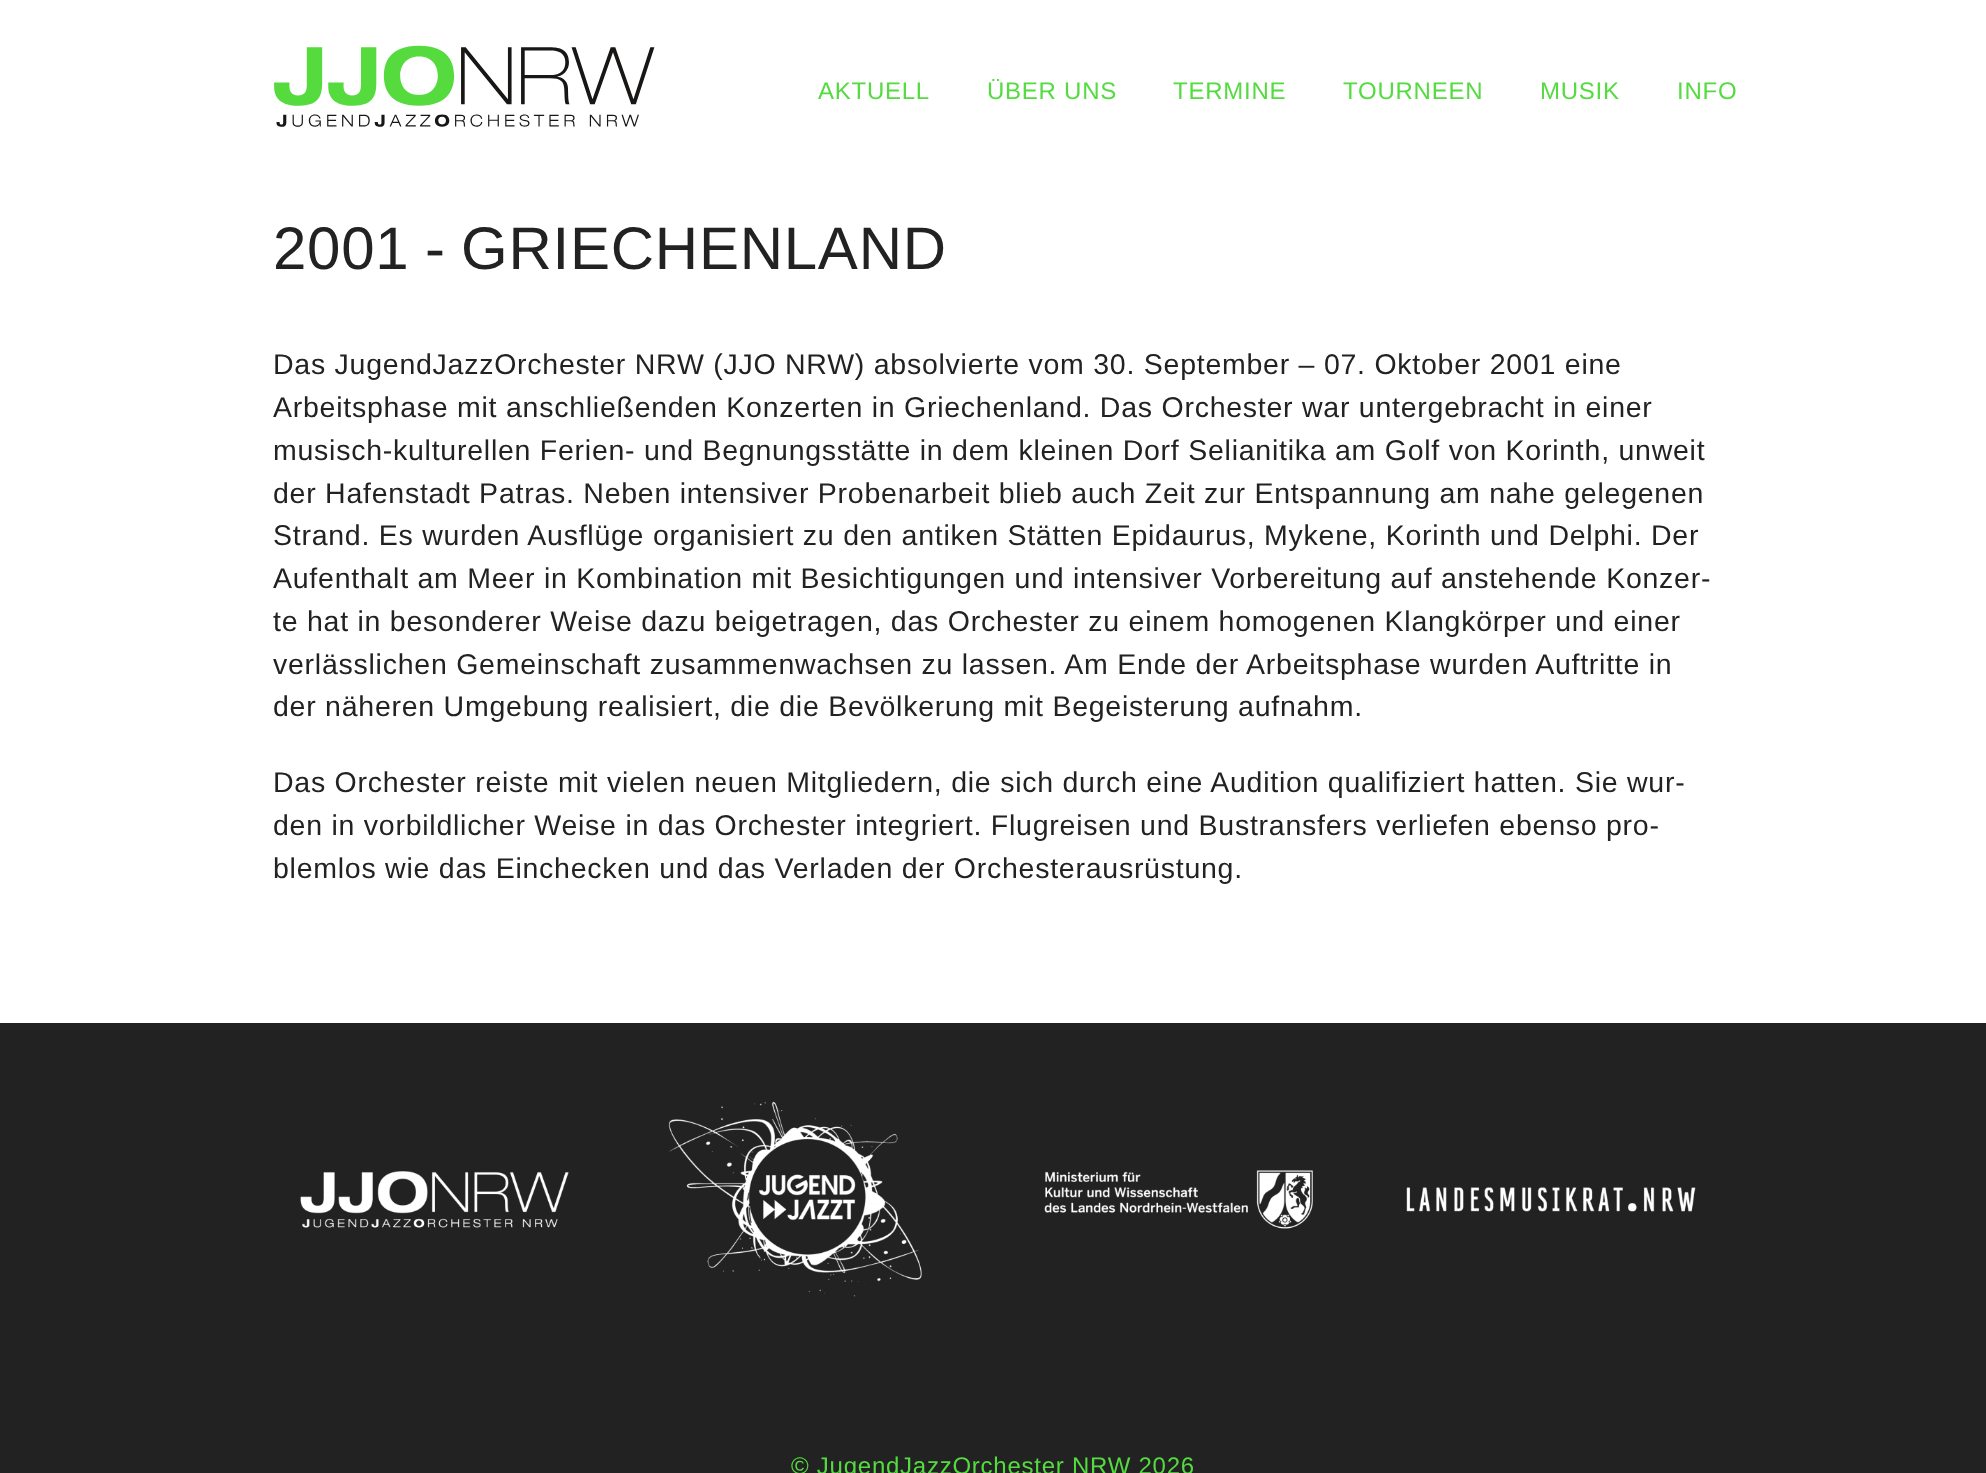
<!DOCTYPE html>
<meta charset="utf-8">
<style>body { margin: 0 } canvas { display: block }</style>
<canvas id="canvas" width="1986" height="1473"></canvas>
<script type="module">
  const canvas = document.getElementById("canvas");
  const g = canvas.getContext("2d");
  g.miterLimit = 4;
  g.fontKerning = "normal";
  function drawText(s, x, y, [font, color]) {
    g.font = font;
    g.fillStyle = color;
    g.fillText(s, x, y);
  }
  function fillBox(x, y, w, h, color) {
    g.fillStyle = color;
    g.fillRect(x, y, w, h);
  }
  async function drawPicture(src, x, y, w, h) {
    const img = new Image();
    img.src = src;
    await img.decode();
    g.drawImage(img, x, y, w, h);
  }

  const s1 = ["24px Liberation Sans", "#54DB40"];
  const s2 = ["60px Liberation Sans", "#222222"];
  const s3 = ["28.5px Liberation Sans", "#222222"];

  fillBox(0, 0, 1986, 1473, "#222222");
  fillBox(0, 0, 1986, 1023, "#FFFFFF");
  await drawPicture("pic1.png", 274, 45, 381, 82);
  g.letterSpacing = "0.75px";
  drawText("AKTUELL", 818, 99, s1);
  drawText("ÜBER UNS", 987, 99, s1);
  drawText("TERMINE", 1173, 99, s1);
  drawText("TOURNEEN", 1343, 99, s1);
  drawText("MUSIK", 1540, 99, s1);
  drawText("INFO", 1677, 99, s1);
  g.wordSpacing = "-2px";
  drawText("2001 - GRIECHENLAND", 273, 269, s2);
  g.wordSpacing = "0px";
  drawText("Das JugendJazzOrchester NRW (JJO NRW) absolvierte vom 30. September – 07. Oktober 2001 eine", 273, 374, s3);
  drawText("Arbeitsphase mit anschließenden Konzerten in Griechenland. Das Orchester war untergebracht in einer", 273, 417, s3);
  drawText("musisch-kulturellen Ferien- und Begnungsstätte in dem kleinen Dorf Selianitika am Golf von Korinth, unweit", 273, 460, s3);
  drawText("der Hafenstadt Patras. Neben intensiver Probenarbeit blieb auch Zeit zur Entspannung am nahe gelegenen", 273, 503, s3);
  drawText("Strand. Es wurden Ausflüge organisiert zu den antiken Stätten Epidaurus, Mykene, Korinth und Delphi. Der", 273, 545, s3);
  drawText("Aufenthalt am Meer in Kombination mit Besichtigungen und intensiver Vorbereitung auf anstehende Konzer-", 273, 588, s3);
  drawText("te hat in besonderer Weise dazu beigetragen, das Orchester zu einem homogenen Klangkörper und einer", 273, 631, s3);
  drawText("verlässlichen Gemeinschaft zusammenwachsen zu lassen. Am Ende der Arbeitsphase wurden Auftritte in", 273, 674, s3);
  drawText("der näheren Umgebung realisiert, die die Bevölkerung mit Begeisterung aufnahm.", 273, 716, s3);
  drawText("Das Orchester reiste mit vielen neuen Mitgliedern, die sich durch eine Audition qualifiziert hatten. Sie wur-", 273, 792, s3);
  drawText("den in vorbildlicher Weise in das Orchester integriert. Flugreisen und Bustransfers verliefen ebenso pro-", 273, 835, s3);
  drawText("blemlos wie das Einchecken und das Verladen der Orchesterausrüstung.", 273, 878, s3);
  await drawPicture("pic2.png", 300, 1171, 269, 57);
  await drawPicture("pic3.png", 668, 1101, 254, 196);
  await drawPicture("pic4.png", 1044, 1170, 269, 59);
  await drawPicture("pic5.png", 1406, 1187, 290, 25);
  drawText("© JugendJazzOrchester NRW 2026", 791, 1474, s1);
</script>
